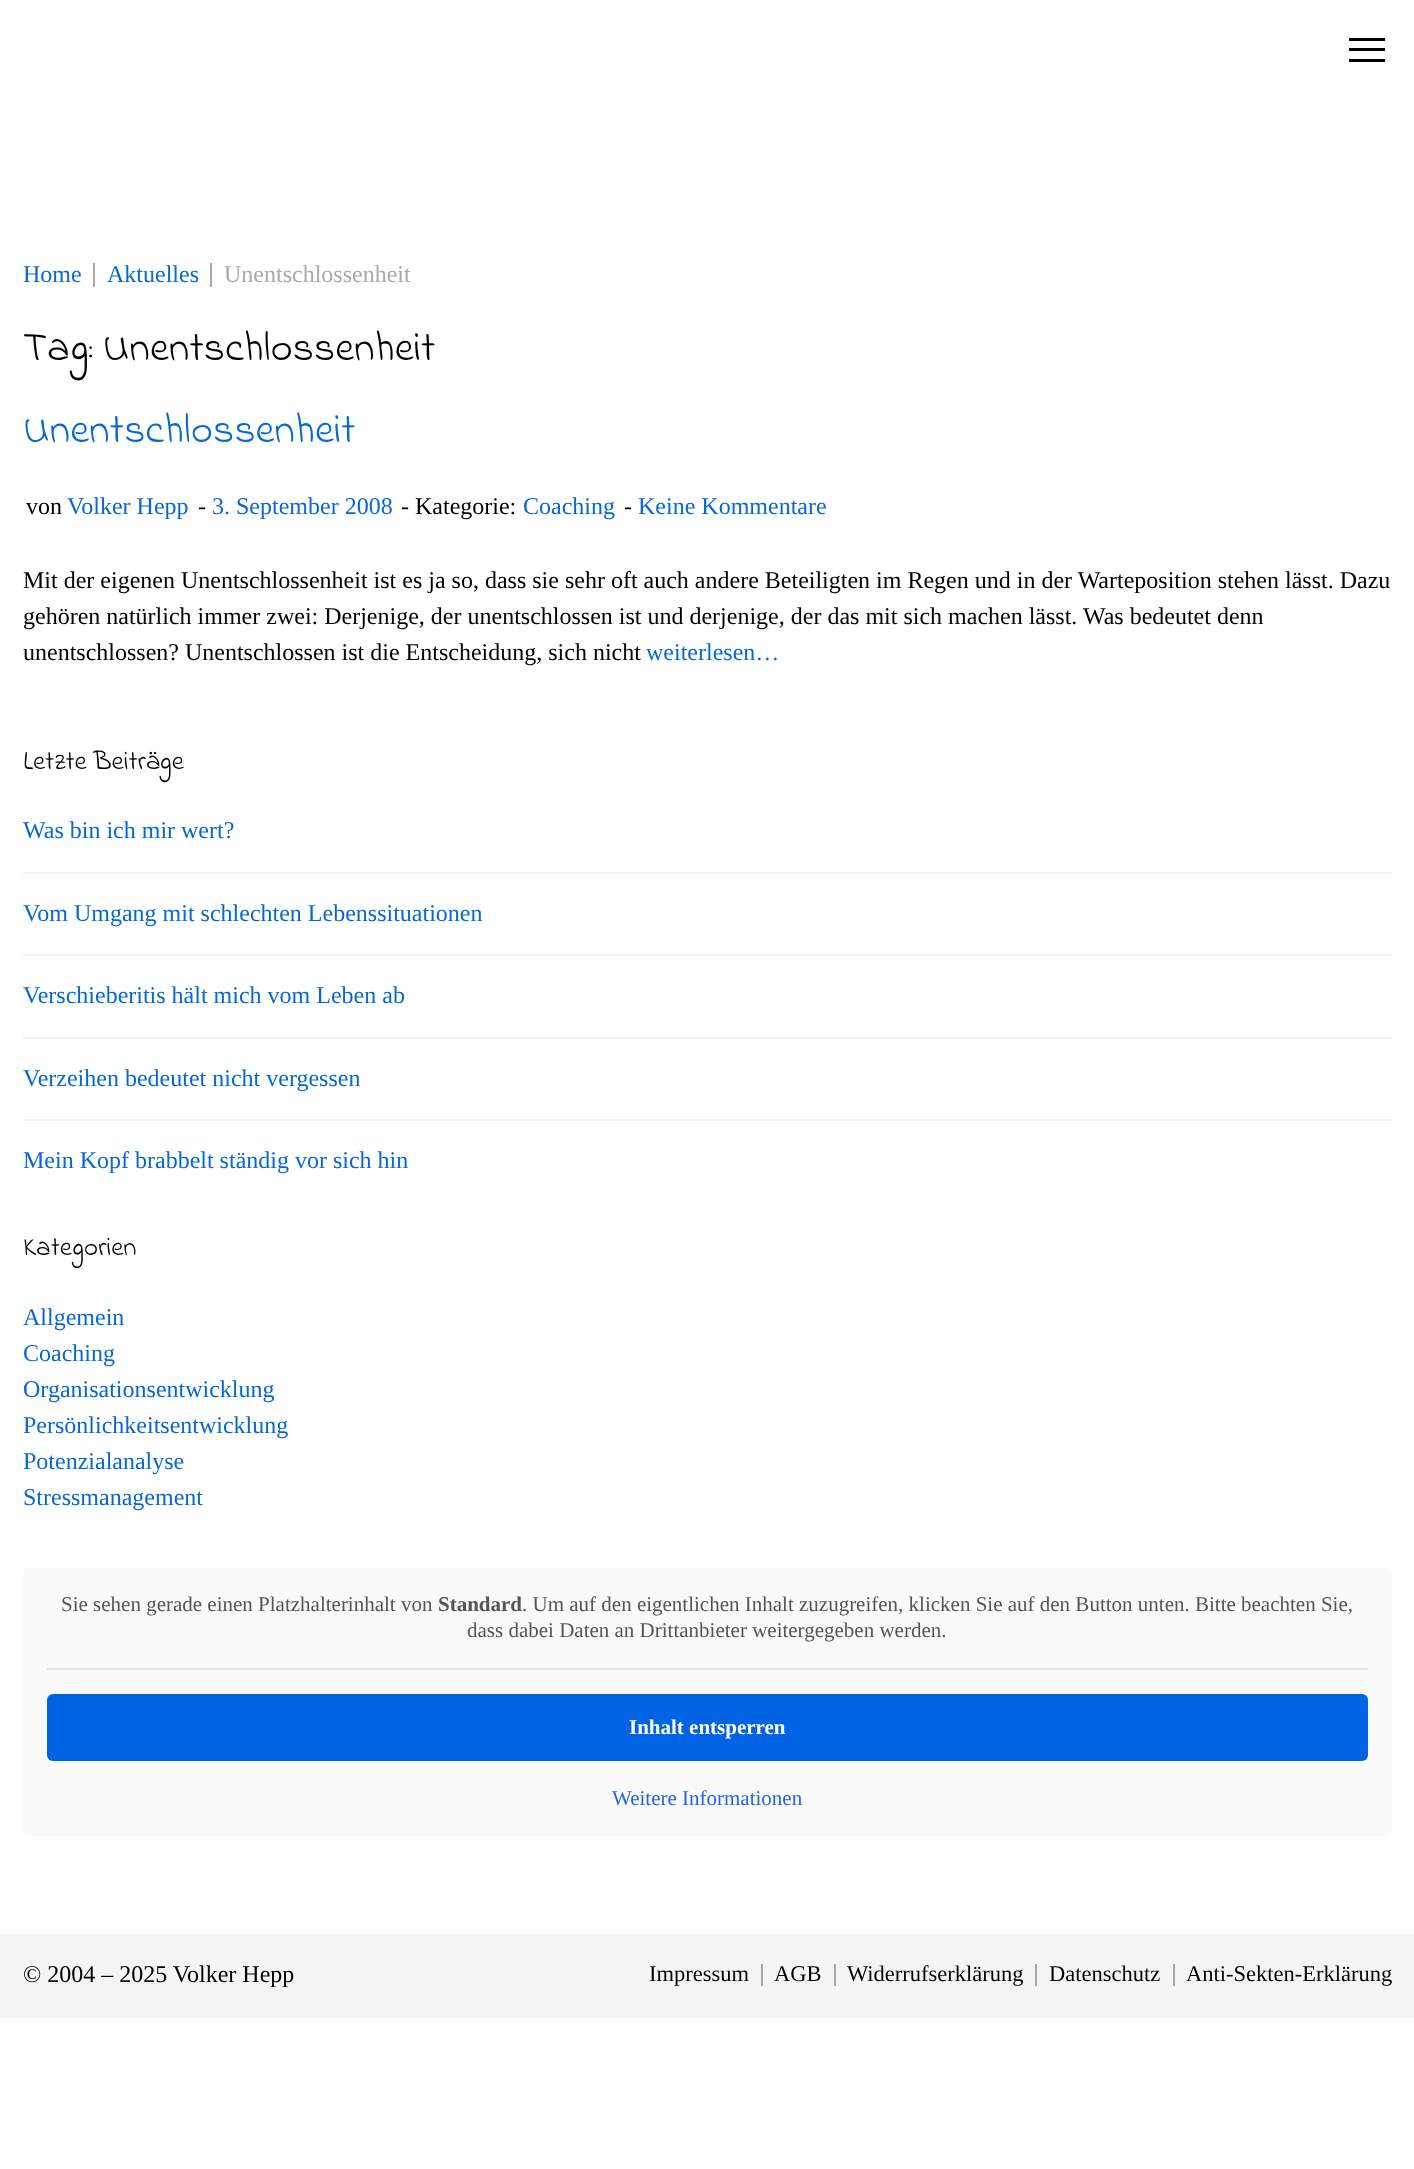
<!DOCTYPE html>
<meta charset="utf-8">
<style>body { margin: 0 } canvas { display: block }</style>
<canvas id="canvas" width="1414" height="2169"></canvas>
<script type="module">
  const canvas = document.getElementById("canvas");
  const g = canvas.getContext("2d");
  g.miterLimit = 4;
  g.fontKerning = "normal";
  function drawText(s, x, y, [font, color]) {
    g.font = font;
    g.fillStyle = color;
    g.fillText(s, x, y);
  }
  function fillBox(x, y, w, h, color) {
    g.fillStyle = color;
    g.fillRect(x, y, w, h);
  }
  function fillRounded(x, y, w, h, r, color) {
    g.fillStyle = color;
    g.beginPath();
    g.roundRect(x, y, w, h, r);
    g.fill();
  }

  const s1 = ["24px Liberation Serif", "#0668D6"];
  const s2 = ["24px Liberation Serif", "#A9A9A9"];
  const s3 = ["42px Indie Flower", "#000000"];
  const s4 = ["42px Indie Flower", "#0668D6"];
  const s5 = ["24px Liberation Serif", "#000000"];
  const s6 = ["27px Indie Flower", "#000000"];
  const s7 = ["21px Liberation Serif", "#555555"];
  const s8 = ["bold 21px Liberation Serif", "#555555"];
  const s9 = ["bold 21px Liberation Serif", "#FFFFFF"];
  const s10 = ["21px Liberation Serif", "#2563EB"];
  const s11 = ["22.5px Liberation Serif", "#000000"];

  fillBox(0, 0, 1414, 2169, "#FFFFFF");
  fillBox(1349, 38, 36, 3, "#000000");
  fillBox(1349, 48, 36, 3, "#000000");
  fillBox(1349, 59, 36, 3, "#000000");
  fillBox(93, 263, 2, 24, "#A9A9A9");
  drawText("Home", 23, 282, s1);
  fillBox(210, 263, 2, 24, "#A9A9A9");
  drawText("Aktuelles", 107, 282, s1);
  drawText("Unentschlossenheit", 224, 282, s2);
  drawText("Tag: Unentschlossenheit", 23, 360, s3);
  drawText("Unentschlossenheit", 23, 442, s4);
  drawText("von", 26, 514, s5);
  drawText("Volker Hepp", 67, 514, s1);
  drawText("-", 198, 514, s5);
  drawText("3. September 2008", 212, 514, s1);
  drawText("- Kategorie:", 401, 514, s5);
  drawText("Coaching", 523, 514, s1);
  drawText("-", 624, 514, s5);
  drawText("Keine Kommentare", 638, 514, s1);
  drawText("Mit der eigenen Unentschlossenheit ist es ja so, dass sie sehr oft auch andere Beteiligten im Regen und in der Warteposition stehen lässt. Dazu", 23, 588, s5);
  drawText("gehören natürlich immer zwei: Derjenige, der unentschlossen ist und derjenige, der das mit sich machen lässt. Was bedeutet denn", 23, 624, s5);
  drawText("unentschlossen? Unentschlossen ist die Entscheidung, sich nicht", 23, 660, s5);
  drawText("weiterlesen…", 646, 660, s1);
  drawText("Letzte Beiträge", 23, 769, s6);
  fillBox(23, 872, 1369, 2, "#F3F3F3");
  drawText("Was bin ich mir wert?", 23, 838, s1);
  fillBox(23, 954, 1369, 2, "#F3F3F3");
  drawText("Vom Umgang mit schlechten Lebenssituationen", 23, 921, s1);
  fillBox(23, 1037, 1369, 2, "#F3F3F3");
  drawText("Verschieberitis hält mich vom Leben ab", 23, 1003, s1);
  fillBox(23, 1119, 1369, 2, "#F3F3F3");
  drawText("Verzeihen bedeutet nicht vergessen", 23, 1086, s1);
  drawText("Mein Kopf brabbelt ständig vor sich hin", 23, 1168, s1);
  drawText("Kategorien", 23, 1255, s6);
  drawText("Allgemein", 23, 1325, s1);
  drawText("Coaching", 23, 1361, s1);
  drawText("Organisationsentwicklung", 23, 1397, s1);
  drawText("Persönlichkeitsentwicklung", 23, 1433, s1);
  drawText("Potenzialanalyse", 23, 1469, s1);
  drawText("Stressmanagement", 23, 1505, s1);
  fillRounded(23, 1568, 1369, 268, 6, "#FAFAFA");
  fillBox(47, 1668, 1321, 2, "#E5E5E5");
  drawText("Sie sehen gerade einen Platzhalterinhalt von", 61, 1611, s7);
  drawText("Standard", 438, 1611, s8);
  drawText(". Um auf den eigentlichen Inhalt zuzugreifen, klicken Sie auf den Button unten. Bitte beachten Sie,", 522, 1611, s7);
  drawText("dass dabei Daten an Drittanbieter weitergegeben werden.", 467, 1637, s7);
  fillRounded(47, 1694, 1321, 67, 6, "#0063E3");
  drawText("Inhalt entsperren", 629, 1734, s9);
  drawText("Weitere Informationen", 612, 1805, s10);
  fillBox(0, 1934, 1414, 84, "#F5F5F5");
  drawText("© 2004 – 2025 Volker Hepp", 23, 1982, s5);
  fillBox(761, 1964, 2, 22, "#A9A9A9");
  drawText("Impressum", 649, 1981, s11);
  fillBox(834, 1964, 2, 22, "#A9A9A9");
  drawText("AGB", 774, 1981, s11);
  fillBox(1035, 1964, 2, 22, "#A9A9A9");
  drawText("Widerrufserklärung", 847, 1981, s11);
  fillBox(1173, 1964, 2, 22, "#A9A9A9");
  drawText("Datenschutz", 1049, 1981, s11);
  drawText("Anti-Sekten-Erklärung", 1186, 1981, s11);
</script>
